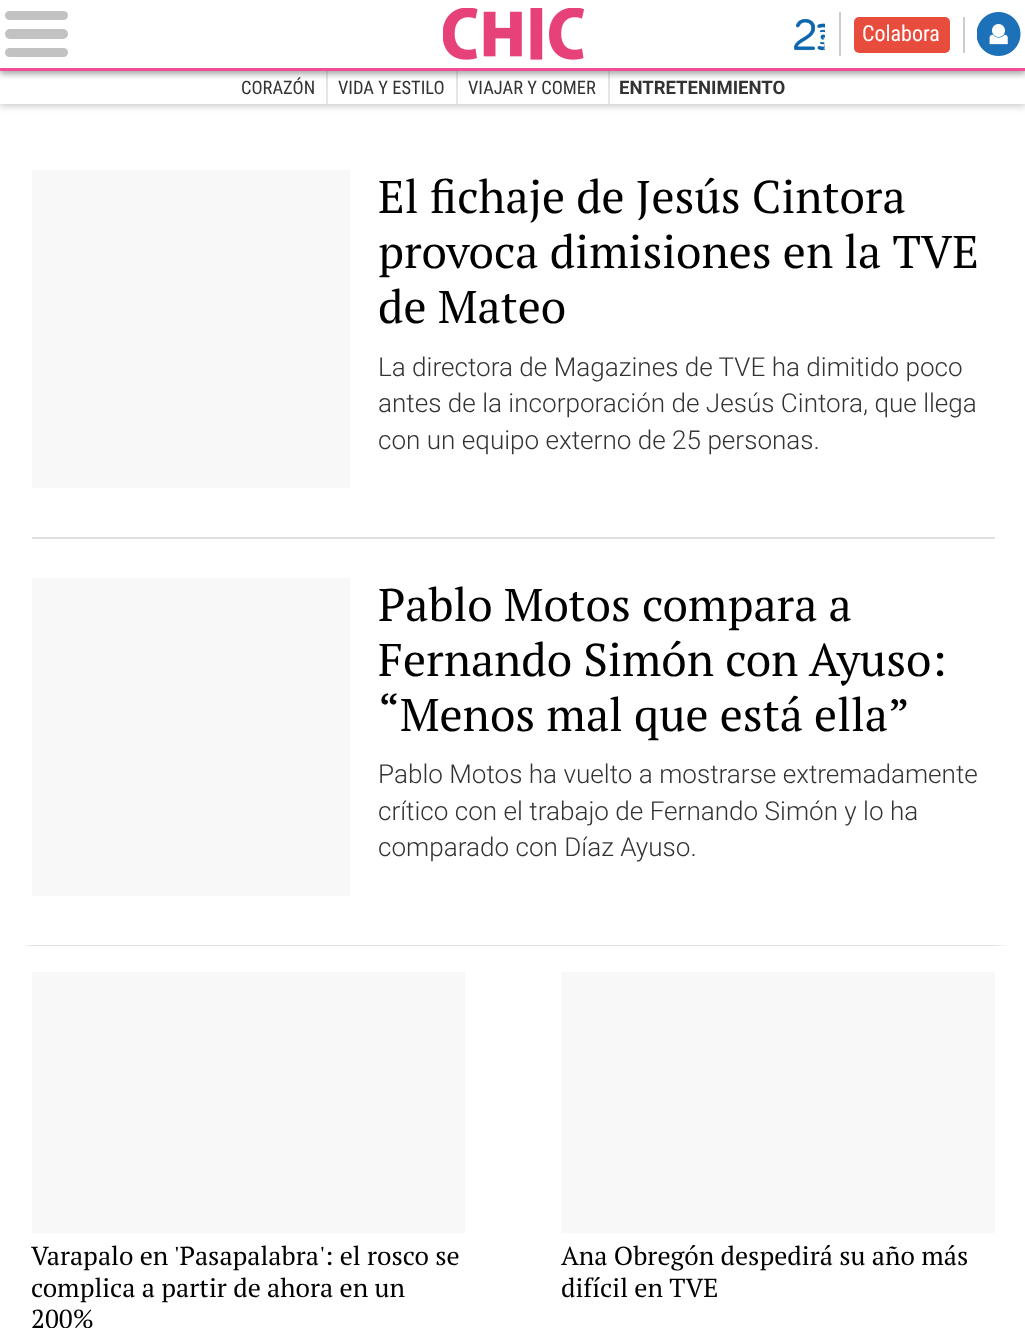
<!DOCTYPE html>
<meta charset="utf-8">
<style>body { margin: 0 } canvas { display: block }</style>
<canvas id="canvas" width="1025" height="1328"></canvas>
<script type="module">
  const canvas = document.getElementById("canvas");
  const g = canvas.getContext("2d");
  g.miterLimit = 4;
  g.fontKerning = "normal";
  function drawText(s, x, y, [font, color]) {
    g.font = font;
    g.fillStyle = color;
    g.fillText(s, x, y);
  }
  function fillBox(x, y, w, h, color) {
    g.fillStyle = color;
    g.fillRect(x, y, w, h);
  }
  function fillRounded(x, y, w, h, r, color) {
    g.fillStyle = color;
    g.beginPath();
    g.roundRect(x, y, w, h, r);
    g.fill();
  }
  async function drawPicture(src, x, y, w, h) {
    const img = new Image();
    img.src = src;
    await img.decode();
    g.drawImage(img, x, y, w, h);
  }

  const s1 = ["22px Roboto Condensed", "#FFFFFF"];
  const s2 = ["18.5px Roboto Condensed", "#333333"];
  const s3 = ["bold 18.5px Roboto", "#333333"];
  const s4 = ["45.9px PT Serif", "#000000"];
  const s5 = ["300 26.1px Roboto", "#333333"];
  const s6 = ["26.1px PT Serif", "#000000"];

  fillBox(0, 0, 1025, 1328, "#FFFFFF");
  g.fillStyle = "rgba(50, 50, 50, 0.22)";
  g.filter = "blur(3px)";
  g.beginPath();
  g.rect(0, 74, 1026, 33);
  g.fill();
  g.filter = "none";
  fillBox(0, 71, 1025, 33, "#FFFFFF");
  fillBox(326, 71, 2, 33, "#E5E5E5");
  fillBox(456, 71, 2, 33, "#E5E5E5");
  fillBox(608, 71, 2, 33, "#E5E5E5");
  g.fillStyle = "rgba(50, 50, 50, 0.44)";
  g.filter = "blur(3px)";
  g.beginPath();
  g.rect(0, 3, 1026, 71);
  g.fill();
  g.filter = "none";
  fillBox(0, 0, 1025, 68, "#FFFFFF");
  fillBox(0, 68, 1025, 3, "#F04E98");
  fillRounded(5, 11, 63, 9, 4.5, "#C2C2C2");
  fillRounded(5, 29, 63, 10, 5, "#C2C2C2");
  fillRounded(5, 48, 63, 9, 4.5, "#C2C2C2");
  await drawPicture("pic1.png", 443, 8, 141, 52);
  fillBox(839, 12, 2, 44, "#CCCCCC");
  await drawPicture("pic2.png", 794, 19, 31, 32);
  fillBox(963, 17, 2, 36, "#CCCCCC");
  fillRounded(854, 17, 96, 36, 5, "#E84C3D");
  drawText("Colabora", 862, 41, s1);
  await drawPicture("pic3.png", 977, 12, 44, 44);
  drawText("CORAZÓN", 241, 94, s2);
  drawText("VIDA Y ESTILO", 338, 94, s2);
  drawText("VIAJAR Y COMER", 468, 94, s2);
  drawText("ENTRETENIMIENTO", 619, 94, s3);
  g.fillStyle = "#E1E0E0";
  g.beginPath();
  g.moveTo(1010, 946);
  g.lineTo(16, 946);
  g.lineTo(32, 945);
  g.lineTo(994, 945);
  g.closePath();
  g.fill();
  g.fillStyle = "#FFFFFF";
  g.beginPath();
  g.moveTo(16, 946);
  g.lineTo(16, 117);
  g.lineTo(32, 117);
  g.lineTo(32, 945);
  g.closePath();
  g.fill();
  fillBox(32, 537, 963, 2, "#E1E0E0");
  fillBox(32, 170, 318, 318, "#F8F8F8");
  drawText("El fichaje de Jesús Cintora", 378, 213, s4);
  drawText("provoca dimisiones en la TVE", 378, 268, s4);
  drawText("de Mateo", 378, 323, s4);
  drawText("La directora de Magazines de TVE ha dimitido poco", 378, 376, s5);
  drawText("antes de la incorporación de Jesús Cintora, que llega", 378, 412, s5);
  drawText("con un equipo externo de 25 personas.", 378, 449, s5);
  fillBox(32, 578, 318, 318, "#F8F8F8");
  drawText("Pablo Motos compara a", 378, 621, s4);
  drawText("Fernando Simón con Ayuso:", 378, 676, s4);
  drawText("“Menos mal que está ella”", 378, 731, s4);
  drawText("Pablo Motos ha vuelto a mostrarse extremadamente", 378, 783, s5);
  drawText("crítico con el trabajo de Fernando Simón y lo ha", 378, 820, s5);
  drawText("comparado con Díaz Ayuso.", 378, 856, s5);
  fillBox(32, 972, 433, 261, "#F8F8F8");
  drawText("Varapalo en 'Pasapalabra': el rosco se", 31, 1265, s6);
  drawText("complica a partir de ahora en un", 31, 1297, s6);
  drawText("200%", 31, 1328, s6);
  fillBox(561, 972, 434, 261, "#F8F8F8");
  drawText("Ana Obregón despedirá su año más", 561, 1265, s6);
  drawText("difícil en TVE", 561, 1297, s6);
</script>
